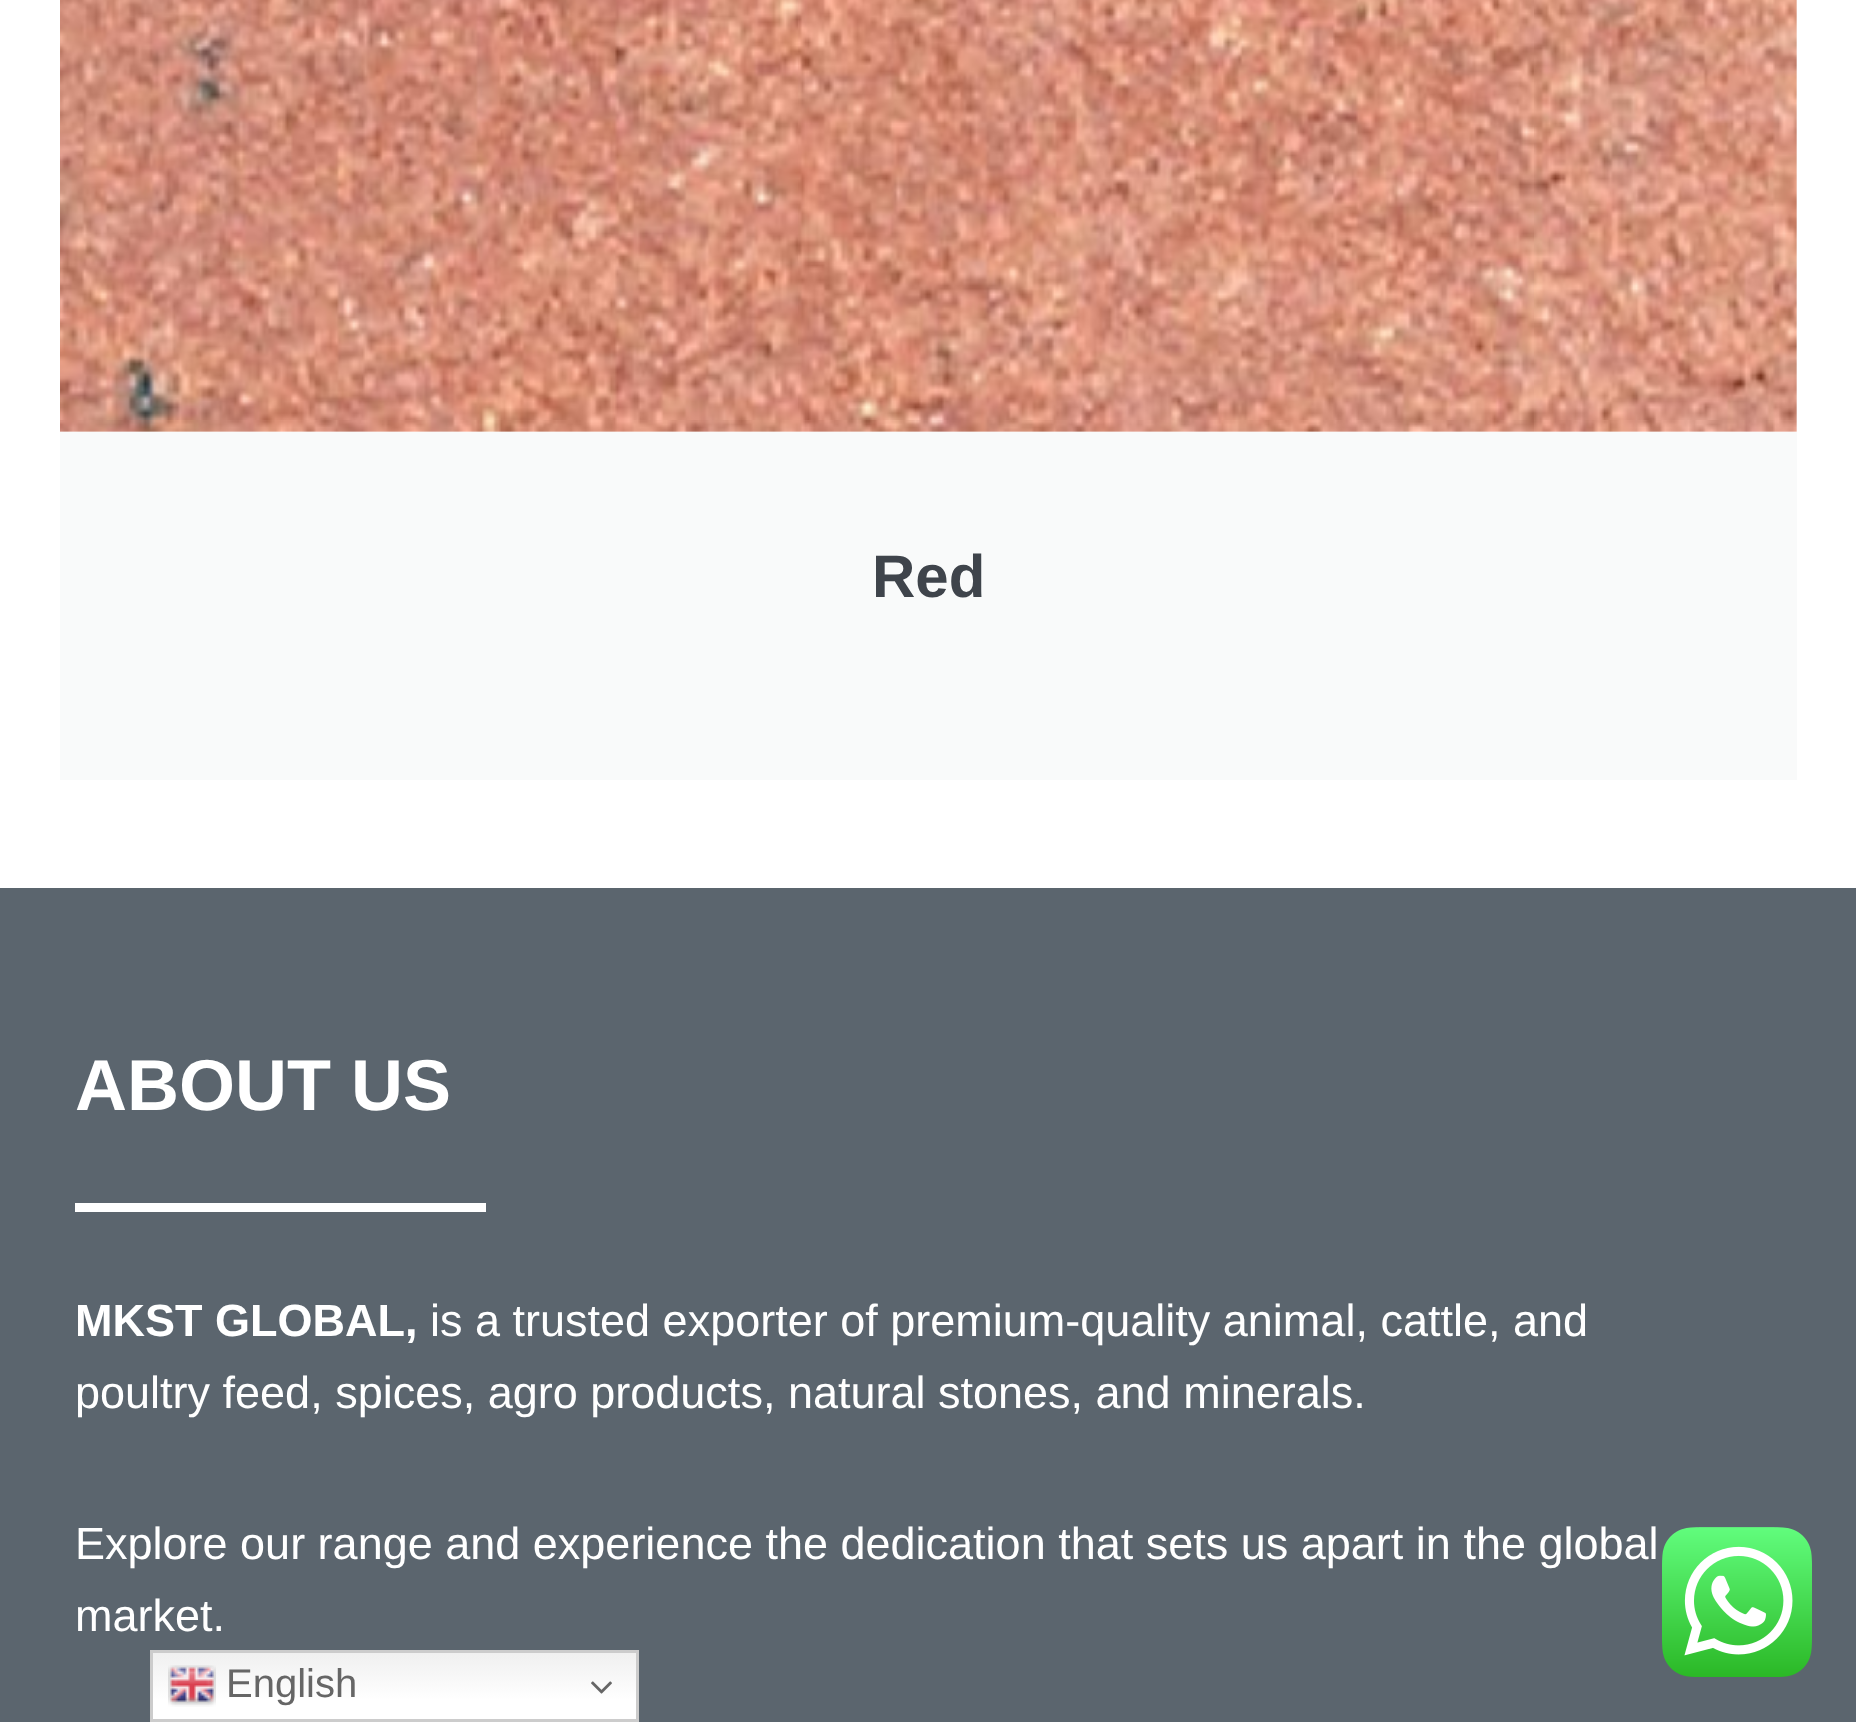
<!DOCTYPE html>
<meta charset="utf-8">
<style>body { margin: 0 } canvas { display: block }</style>
<canvas id="canvas" width="1856" height="1722"></canvas>
<script type="module">
  const canvas = document.getElementById("canvas");
  const g = canvas.getContext("2d");
  g.miterLimit = 4;
  g.fontKerning = "normal";
  function drawText(s, x, y, [font, color]) {
    g.font = font;
    g.fillStyle = color;
    g.fillText(s, x, y);
  }
  function fillBox(x, y, w, h, color) {
    g.fillStyle = color;
    g.fillRect(x, y, w, h);
  }
  async function drawPicture(src, x, y, w, h) {
    const img = new Image();
    img.src = src;
    await img.decode();
    g.drawImage(img, x, y, w, h);
  }
  let gradient;

  const s1 = ["bold 60px Liberation Sans", "#3F444B"];
  const s2 = ["bold 72px Liberation Sans", "#FFFFFF"];
  const s3 = ["bold 45px Liberation Sans", "#FFFFFF"];
  const s4 = ["45px Liberation Sans", "#FFFFFF"];
  const s5 = ["40px Liberation Sans", "#666666"];

  fillBox(0, 0, 1856, 1722, "#FFFFFF");
  await drawPicture("pic1.png", 60, 0, 1737, 432);
  fillBox(60, 432, 1737, 348, "#F9FAFA");
  drawText("Red", 872, 597, s1);
  fillBox(0, 888, 1856, 834, "#5B656E");
  drawText("ABOUT US", 75, 1110, s2);
  fillBox(75, 1203, 411, 9, "#FFFFFF");
  drawText("MKST GLOBAL,", 75, 1336, s3);
  drawText("is a trusted exporter of premium-quality animal, cattle, and", 430, 1336, s4);
  drawText("poultry feed, spices, agro products, natural stones, and minerals.", 75, 1408, s4);
  drawText("Explore our range and experience the dedication that sets us apart in the global", 75, 1559, s4);
  drawText("market.", 75, 1631, s4);
  await drawPicture("pic2.png", 1662, 1527, 150, 150);
  gradient = g.createLinearGradient(395, 1650, 395, 1722);
  gradient.addColorStop(0, "#EFEFEF");
  gradient.addColorStop(0.7, "#FFFFFF");
  g.fillStyle = gradient;
  g.fillRect(153, 1653, 483, 66);
  g.strokeStyle = "#CCCCCC";
  g.lineWidth = 3;
  g.strokeRect(151.5, 1651.5, 486, 69);
  await drawPicture("pic3.png", 168, 1665, 48, 42);
  drawText("English", 226, 1697, s5);
  await drawPicture("pic4.png", 591, 1681, 21, 13);
</script>
